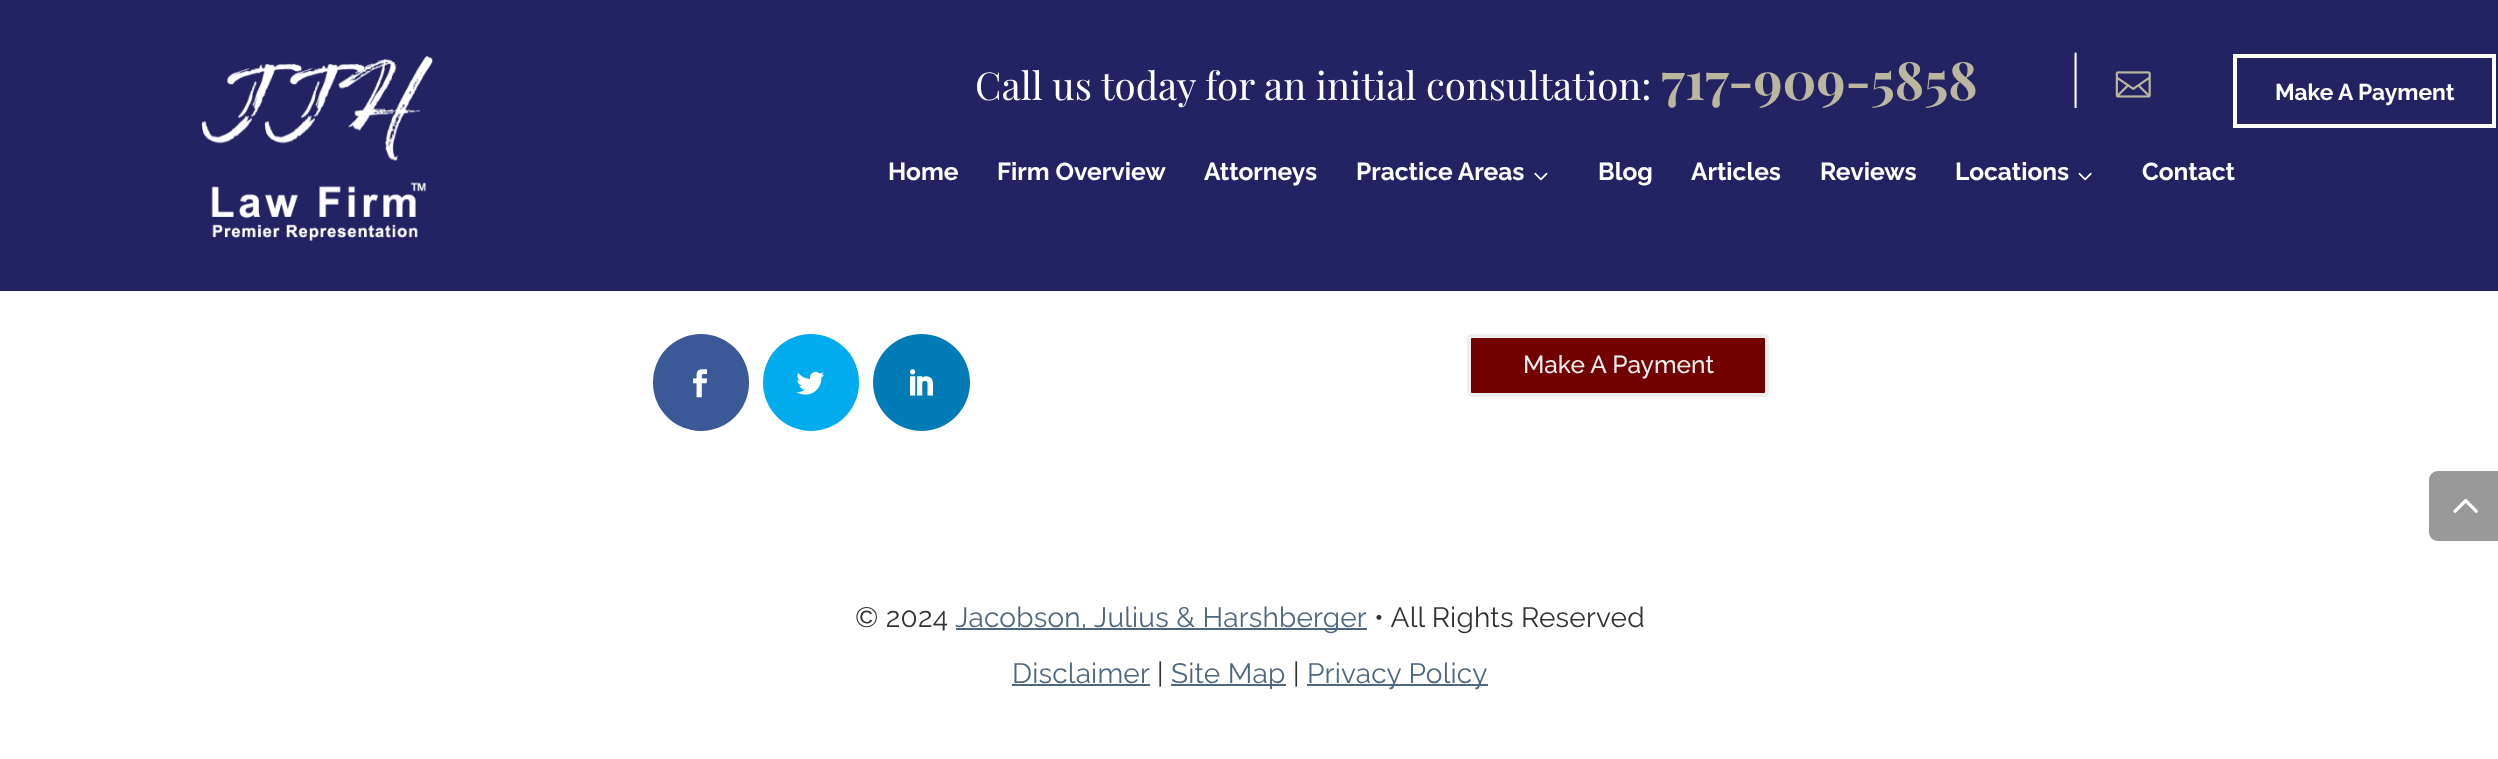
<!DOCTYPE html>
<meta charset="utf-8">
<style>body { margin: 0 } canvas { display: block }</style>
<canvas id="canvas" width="2498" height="759"></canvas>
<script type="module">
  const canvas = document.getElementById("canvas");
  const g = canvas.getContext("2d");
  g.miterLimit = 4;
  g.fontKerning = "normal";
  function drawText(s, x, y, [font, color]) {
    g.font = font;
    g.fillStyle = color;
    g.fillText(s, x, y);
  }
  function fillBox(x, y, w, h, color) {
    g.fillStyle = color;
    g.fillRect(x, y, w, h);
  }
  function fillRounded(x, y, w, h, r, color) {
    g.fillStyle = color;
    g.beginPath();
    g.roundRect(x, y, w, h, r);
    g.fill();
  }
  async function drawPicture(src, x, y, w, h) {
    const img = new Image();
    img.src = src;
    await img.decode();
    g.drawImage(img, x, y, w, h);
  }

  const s1 = ["38.5px Playfair Display", "#FFFFFF"];
  const s2 = ["bold 52.5px Playfair Display", "#BBB79F"];
  const s3 = ["200 61px Raleway", "#FFFFFF"];
  const s4 = ["bold 22.75px Raleway", "#FFFFFF"];
  const s5 = ["bold 24.5px Raleway", "#FFFFFF"];
  const s6 = ["500 24.5px Raleway", "#EEEEEE"];
  const s7 = ["28px Raleway", "#333333"];
  const s8 = ["28px Raleway", "#4E6780"];

  fillBox(0, 0, 2498, 759, "#FFFFFF");
  fillBox(0, 0, 2498, 291, "#232263");
  await drawPicture("pic1.png", 201, 55, 232, 186);
  drawText("Call us today for an initial consultation:", 975, 100, s1);
  drawText("717-909-5858", 1661, 100, s2);
  drawText("|", 2069, 100, s3);
  await drawPicture("pic2.png", 2115, 71, 36, 27);
  g.strokeStyle = "#FFFFFF";
  g.lineWidth = 4;
  g.strokeRect(2235, 56, 259, 70);
  drawText("Make A Payment", 2275, 100, s4);
  drawText("Home", 888, 180, s5);
  drawText("Firm Overview", 997, 180, s5);
  drawText("Attorneys", 1204, 180, s5);
  drawText("Practice Areas", 1356, 180, s5);
  await drawPicture("pic3.png", 1534, 172, 14, 9);
  drawText("Blog", 1598, 180, s5);
  drawText("Articles", 1691, 180, s5);
  drawText("Reviews", 1820, 180, s5);
  drawText("Locations", 1955, 180, s5);
  await drawPicture("pic4.png", 2078, 172, 14, 9);
  drawText("Contact", 2142, 180, s5);
  fillRounded(653, 334, 96, 97, 48, "#3B5997");
  await drawPicture("pic5.png", 693, 369, 15, 29);
  fillRounded(763, 334, 96, 97, 48, "#00ACED");
  await drawPicture("pic6.png", 796, 371, 29, 24);
  g.fillStyle = "#007BB6";
  g.beginPath();
  g.arc(921.5, 382.5, 48.5, 0, Math.PI * 2);
  g.fill();
  await drawPicture("pic7.png", 910, 369, 23, 27);
  g.fillStyle = "#720000";
  g.beginPath();
  g.roundRect(1469, 336, 298, 59, 3);
  g.fill();
  g.strokeStyle = "#EEEEEE";
  g.stroke();
  drawText("Make A Payment", 1523, 373, s6);
  g.letterSpacing = "0.2px";
  drawText("© 2024", 855, 627, s7);
  fillBox(956, 628, 411, 2, "#4E6780");
  drawText("Jacobson, Julius & Harshberger", 955, 627, s8);
  drawText("• All Rights Reserved", 1374, 627, s7);
  drawText("Disclaimer", 1012, 683, s8);
  fillBox(1012, 684, 138, 2, "#4E6780");
  drawText("|", 1157, 683, s7);
  fillBox(1171, 684, 115, 2, "#4E6780");
  drawText("Site Map", 1171, 683, s8);
  drawText("|", 1293, 683, s7);
  fillBox(1307, 684, 181, 2, "#4E6780");
  drawText("Privacy Policy", 1307, 683, s8);
  g.fillStyle = "#999999";
  g.beginPath();
  g.moveTo(2438, 471);
  g.lineTo(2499, 471);
  g.lineTo(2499, 541);
  g.lineTo(2438, 541);
  g.bezierCurveTo(2433, 541, 2429, 537, 2429, 532);
  g.lineTo(2429, 480);
  g.bezierCurveTo(2429, 475, 2433, 471, 2438, 471);
  g.closePath();
  g.fill();
  await drawPicture("pic8.png", 2453, 499, 25, 14);
</script>
